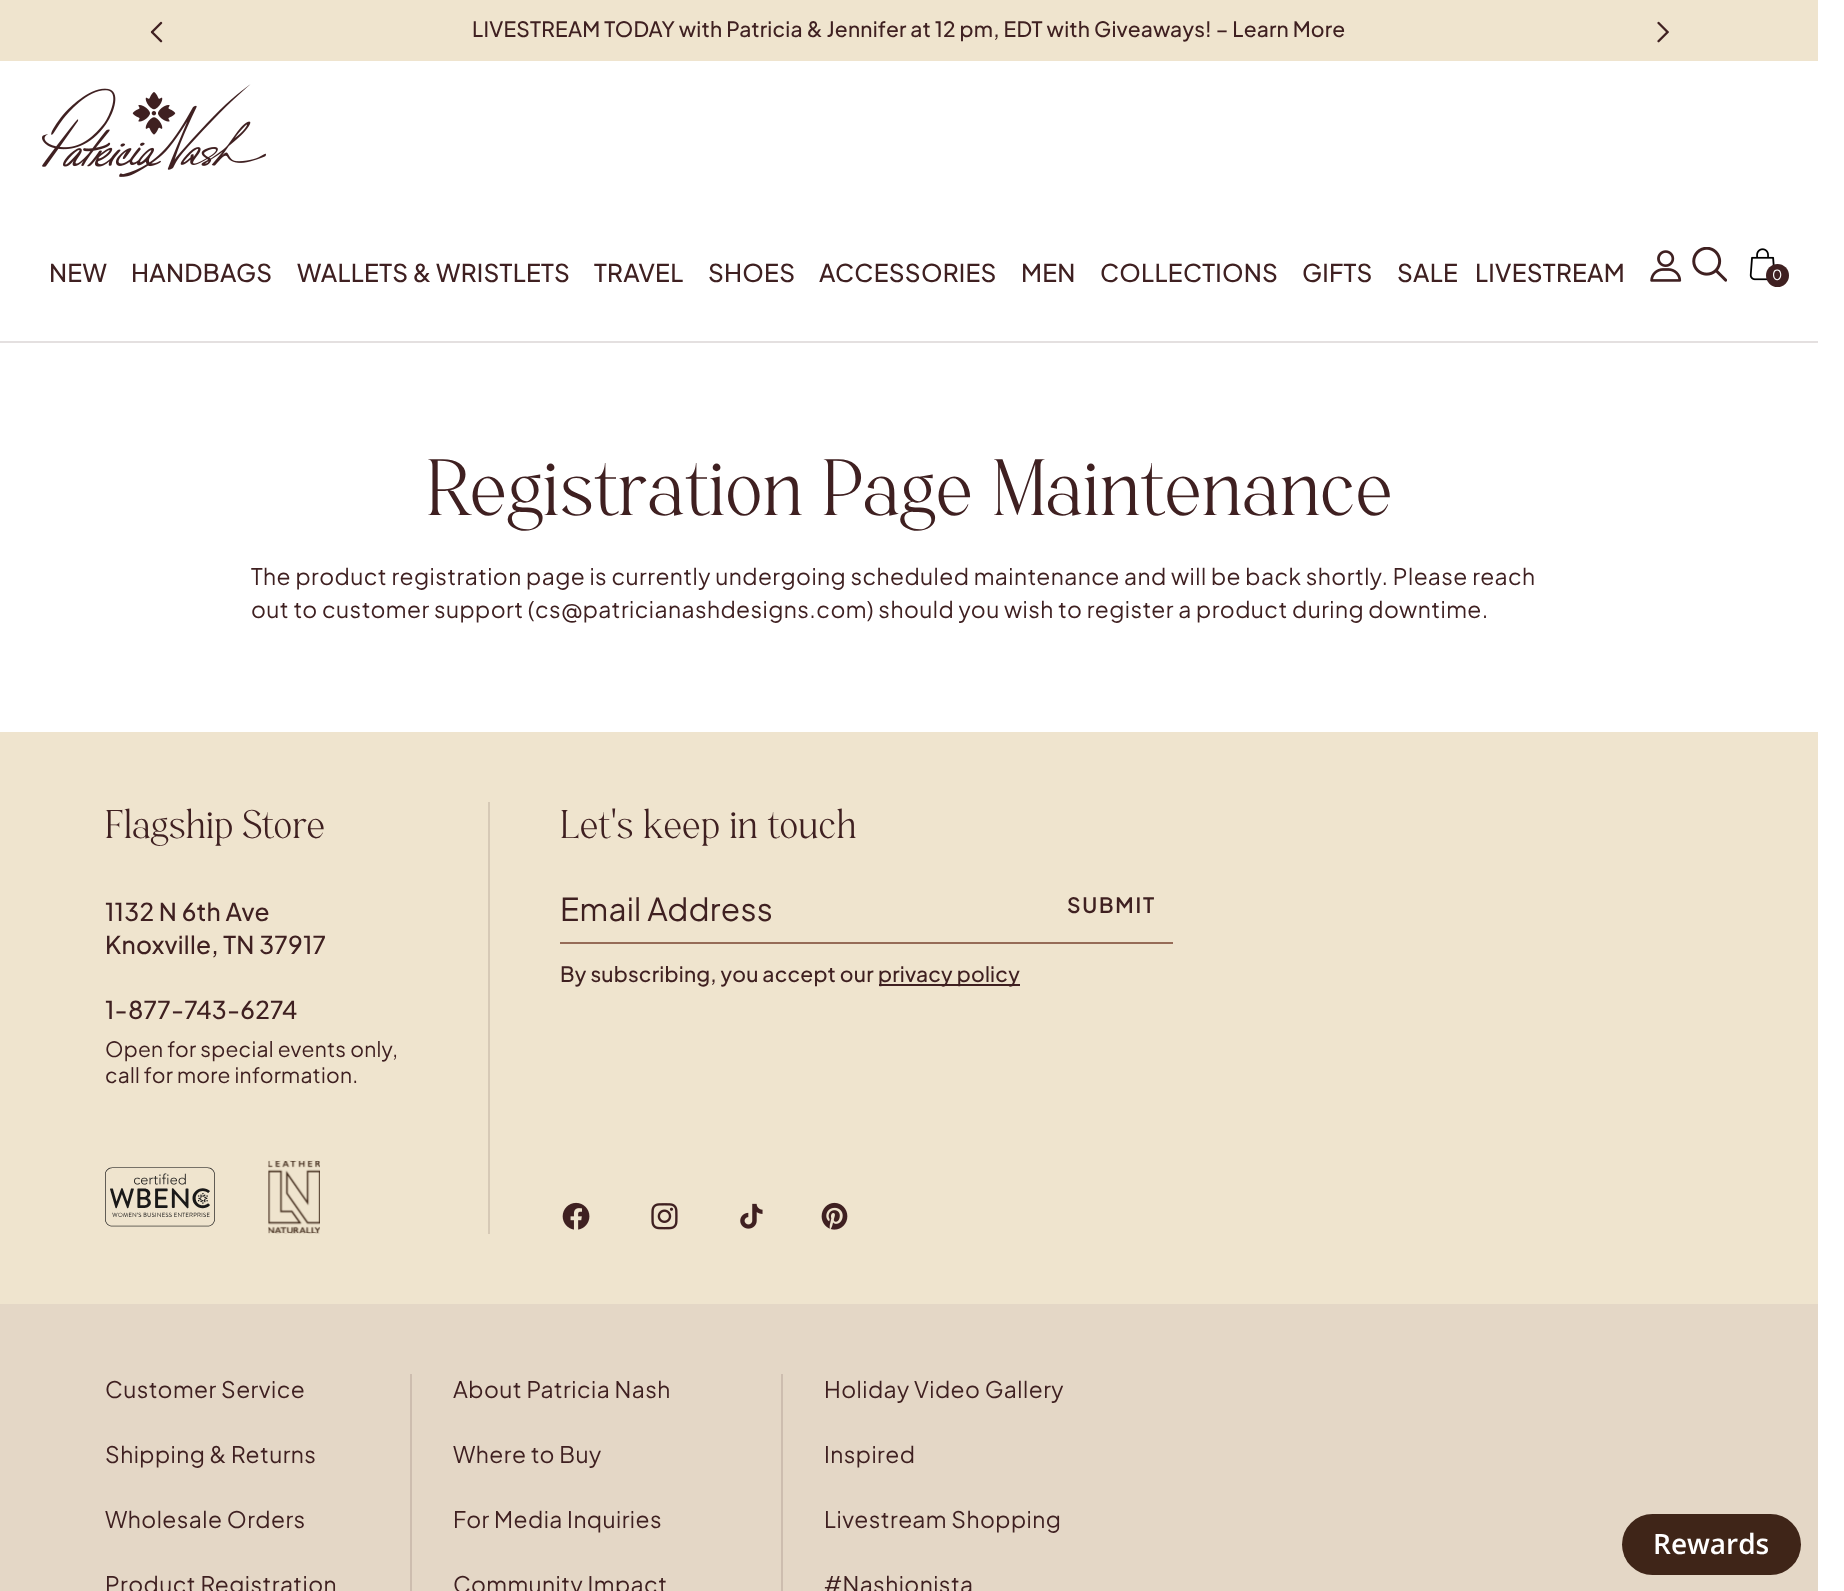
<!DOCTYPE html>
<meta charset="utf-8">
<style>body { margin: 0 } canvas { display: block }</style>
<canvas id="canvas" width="1844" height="1591"></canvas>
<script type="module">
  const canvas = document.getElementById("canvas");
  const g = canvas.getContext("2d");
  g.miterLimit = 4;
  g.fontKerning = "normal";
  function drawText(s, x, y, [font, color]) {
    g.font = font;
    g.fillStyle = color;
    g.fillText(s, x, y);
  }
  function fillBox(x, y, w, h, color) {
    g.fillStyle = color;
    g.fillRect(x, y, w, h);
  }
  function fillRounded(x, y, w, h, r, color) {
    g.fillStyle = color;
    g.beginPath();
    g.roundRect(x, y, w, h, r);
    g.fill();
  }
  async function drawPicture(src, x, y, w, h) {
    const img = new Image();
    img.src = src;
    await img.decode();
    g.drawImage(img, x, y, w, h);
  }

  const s1 = ["500 21px Plus Jakarta Sans", "#3F2021"];
  const s2 = ["500 24.5px Plus Jakarta Sans", "#3F2021"];
  const s3 = ["14px Plus Jakarta Sans", "#FFFFFF"];
  const s4 = ["300 84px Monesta", "#3F2021"];
  const s5 = ["22.75px Plus Jakarta Sans", "#3F2021"];
  const s6 = ["300 42px Monesta", "#3F2021"];
  const s7 = ["21px Plus Jakarta Sans", "#3F2021"];
  const s8 = ["31.5px Plus Jakarta Sans", "#3F2021"];
  const s9 = ["600 21px Plus Jakarta Sans", "#3F2021"];
  const s10 = ["600 28px Open Sans", "#FFFFFF"];

  fillBox(0, 0, 1844, 1591, "#FFFFFF");
  fillBox(0, 0, 1818, 61, "#EFE4CE");
  await drawPicture("pic1.png", 150, 21, 13, 22);
  g.letterSpacing = "0.2px";
  drawText("LIVESTREAM TODAY with Patricia & Jennifer at 12 pm, EDT with Giveaways! – Learn More", 472, 37, s1);
  await drawPicture("pic2.png", 1657, 21, 12, 22);
  fillBox(0, 341, 1818, 2, "#E4E0E0");
  await drawPicture("pic3.png", 42, 84, 224, 93);
  g.letterSpacing = "0.25px";
  drawText("NEW", 49, 282, s2);
  drawText("HANDBAGS", 131, 282, s2);
  drawText("WALLETS & WRISTLETS", 297, 282, s2);
  drawText("TRAVEL", 594, 282, s2);
  drawText("SHOES", 708, 282, s2);
  drawText("ACCESSORIES", 819, 282, s2);
  drawText("MEN", 1021, 282, s2);
  drawText("COLLECTIONS", 1100, 282, s2);
  drawText("GIFTS", 1302, 282, s2);
  drawText("SALE", 1397, 282, s2);
  drawText("LIVESTREAM", 1475, 282, s2);
  await drawPicture("pic4.png", 1650, 250, 32, 32);
  await drawPicture("pic5.png", 1692, 247, 35, 35);
  await drawPicture("pic6.png", 1749, 248, 26, 33);
  g.beginPath();
  g.arc(1777.5, 275.5, 11.5, 0, Math.PI * 2);
  g.fill();
  g.letterSpacing = "0px";
  drawText("0", 1772, 280, s3);
  drawText("Registration Page Maintenance", 426, 515, s4);
  g.letterSpacing = "0.46px";
  drawText("The product registration page is currently undergoing scheduled maintenance and will be back shortly. Please reach", 251, 585, s5);
  drawText("out to customer support (cs@patricianashdesigns.com) should you wish to register a product during downtime.", 251, 618, s5);
  fillBox(0, 732, 1818, 572, "#EFE4CE");
  fillBox(488, 802, 2, 432, "#D6C9B6");
  g.letterSpacing = "0px";
  drawText("Flagship Store", 105, 838, s6);
  g.letterSpacing = "0.25px";
  drawText("1132 N 6th Ave", 105, 921, s2);
  drawText("Knoxville, TN 37917", 105, 954, s2);
  drawText("1-877-743-6274", 105, 1019, s2);
  drawText("Open for special events only,", 105, 1057, s7);
  drawText("call for more information.", 105, 1083, s7);
  await drawPicture("pic7.png", 105, 1167, 110, 60);
  await drawPicture("pic8.png", 268, 1160, 52, 74);
  g.letterSpacing = "0px";
  drawText("Let's keep in touch", 560, 838, s6);
  fillBox(560, 942, 613, 2, "#966B57");
  g.letterSpacing = "0.25px";
  drawText("Email Address", 560, 921, s8);
  g.letterSpacing = "1.75px";
  drawText("SUBMIT", 1067, 913, s9);
  g.letterSpacing = "0.2px";
  drawText("By subscribing, you accept our", 560, 982, s1);
  fillBox(879, 984, 141, 2, "#3F2021");
  drawText("privacy policy", 878, 982, s1);
  await drawPicture("pic9.png", 562, 1202, 28, 28);
  await drawPicture("pic10.png", 651, 1203, 27, 27);
  await drawPicture("pic11.png", 740, 1203, 23, 26);
  await drawPicture("pic12.png", 821, 1202, 27, 28);
  fillBox(0, 1304, 1818, 287, "#E4D7C6");
  fillBox(410, 1374, 2, 217, "#CDBDAF");
  g.letterSpacing = "0.46px";
  drawText("Customer Service", 105, 1398, s5);
  drawText("Shipping & Returns", 105, 1463, s5);
  drawText("Wholesale Orders", 105, 1528, s5);
  drawText("Product Registration", 105, 1593, s5);
  fillBox(781, 1374, 2, 217, "#CDBDAF");
  drawText("About Patricia Nash", 453, 1398, s5);
  drawText("Where to Buy", 453, 1463, s5);
  drawText("For Media Inquiries", 453, 1528, s5);
  drawText("Community Impact", 453, 1593, s5);
  drawText("Holiday Video Gallery", 824, 1398, s5);
  drawText("Inspired", 824, 1463, s5);
  drawText("Livestream Shopping", 824, 1528, s5);
  drawText("#Nashionista", 824, 1593, s5);
  fillRounded(1622, 1514, 179, 61, 30.5, "#3F2518");
  g.letterSpacing = "0px";
  drawText("Rewards", 1653, 1554, s10);
</script>
